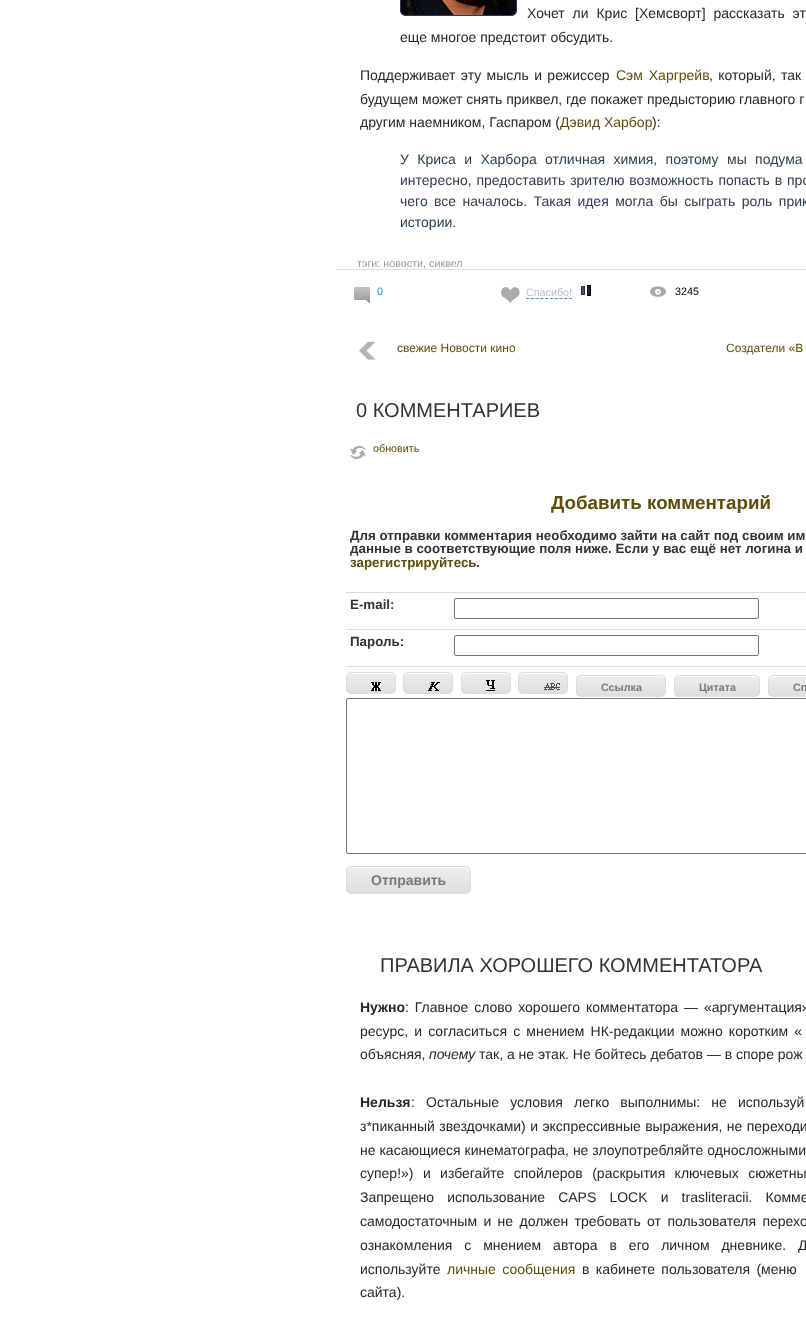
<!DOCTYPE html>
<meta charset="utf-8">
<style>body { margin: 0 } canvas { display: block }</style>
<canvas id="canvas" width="806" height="1337"></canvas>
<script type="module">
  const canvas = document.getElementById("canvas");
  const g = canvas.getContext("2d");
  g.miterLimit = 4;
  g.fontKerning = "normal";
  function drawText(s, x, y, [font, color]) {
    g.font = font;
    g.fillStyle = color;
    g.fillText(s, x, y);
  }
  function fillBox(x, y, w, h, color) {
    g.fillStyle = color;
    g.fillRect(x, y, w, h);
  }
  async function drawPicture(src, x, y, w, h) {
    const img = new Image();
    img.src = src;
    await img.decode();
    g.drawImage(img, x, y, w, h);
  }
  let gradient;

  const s1 = ["14px Liberation Sans", "#272727"];
  const s2 = ["14px Liberation Sans", "#5C4E0A"];
  const s3 = ["14px Liberation Sans", "#2C3E50"];
  const s4 = ["10.75px Liberation Sans", "#999999"];
  const s5 = ["10.75px Liberation Sans", "#3498DB"];
  const s6 = ["10.75px Liberation Sans", "#BEBEBE"];
  const s7 = ["10.75px Liberation Sans", "#000000"];
  const s8 = ["12px Liberation Sans", "#5C4E0A"];
  const s9 = ["20px Liberation Sans", "#333333"];
  const s10 = ["10.75px Liberation Sans", "#5C4E0A"];
  const s11 = ["bold 18.75px Liberation Sans", "#5C4E0A"];
  const s12 = ["bold 13.35px Liberation Sans", "#333333"];
  const s13 = ["bold 13.35px Liberation Sans", "#5C4E0A"];
  const s14 = ["bold 10.75px Liberation Sans", "#777777"];
  const s15 = ["bold 14px Liberation Sans", "#777777"];
  const s16 = ["bold 14px Liberation Sans", "#272727"];
  const s17 = ["italic 14px Liberation Sans", "#272727"];

  fillBox(0, 0, 806, 1337, "#FFFFFF");
  g.beginPath();
  g.roundRect(400.5, -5.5, 116, 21, 4.5);
  g.strokeStyle = "#333366";
  g.stroke();
  await drawPicture("pic1.png", 401, 0, 115, 15);
  g.wordSpacing = "4px";
  drawText("Хочет ли Крис [Хемсворт] рассказать эт", 527, 18, s1);
  g.wordSpacing = "0px";
  drawText("еще многое предстоит обсудить.", 400, 42, s1);
  g.wordSpacing = "1.5px";
  drawText("Поддерживает эту мысль и режиссер", 360, 80, s1);
  g.wordSpacing = "2px";
  drawText("Сэм Харгрейв", 616, 80, s2);
  g.wordSpacing = "1.5px";
  drawText(", который, так", 709, 80, s1);
  g.wordSpacing = "0px";
  drawText("будущем может снять приквел, где покажет предысторию главного г", 360, 104, s1);
  drawText("другим наемником, Гаспаром (", 360, 127, s1);
  drawText("Дэвид Харбор", 560, 127, s2);
  drawText("):", 652, 127, s1);
  g.wordSpacing = "4.5px";
  drawText("У Криса и Харбора отличная химия, поэтому мы подума", 400, 164, s3);
  g.wordSpacing = "1px";
  drawText("интересно, предоставить зрителю возможность попасть в про", 400, 185, s3);
  g.wordSpacing = "2.5px";
  drawText("чего все началось. Такая идея могла бы сыграть роль прик", 400, 206, s3);
  g.wordSpacing = "0px";
  drawText("истории.", 400, 227, s3);
  drawText("тэги: новости, сиквел", 357, 267, s4);
  fillBox(336, 269, 470, 1, "#DDDDDD");
  await drawPicture("pic2.png", 354, 287, 16, 16);
  drawText("0", 377, 295, s5);
  await drawPicture("pic3.png", 501, 287, 19, 16);
  drawText("Спасибо!", 526, 296, s6);
  g.beginPath();
  g.moveTo(526, 298.5);
  g.lineTo(572, 298.5);
  g.strokeStyle = "#3498DB";
  g.setLineDash([3, 1.78]);
  g.stroke();
  await drawPicture("pic4.png", 581, 285, 10, 11);
  await drawPicture("pic5.png", 650, 286, 16, 11);
  drawText("3245", 675, 295, s7);
  await drawPicture("pic6.png", 359, 341, 17, 19);
  drawText("свежие Новости кино", 397, 352, s8);
  drawText("Создатели «В", 726, 352, s8);
  drawText("0 КОММЕНТАРИЕВ", 356, 417, s9);
  await drawPicture("pic7.png", 350, 445, 16, 14);
  drawText("обновить", 373, 452, s10);
  drawText("Добавить комментарий", 551, 509, s11);
  fillBox(346, 592, 460, 1, "#DDDDDD");
  drawText("Для отправки комментария необходимо зайти на сайт под своим им", 350, 540, s12);
  drawText("данные в соответствующие поля ниже. Если у вас ещё нет логина и", 350, 553, s12);
  drawText("зарегистрируйтесь", 350, 567, s13);
  drawText(".", 476, 567, s12);
  fillBox(346, 629, 460, 1, "#DDDDDD");
  g.beginPath();
  g.roundRect(454.5, 598.5, 304, 20, 1.5);
  g.strokeStyle = "#767676";
  g.setLineDash([]);
  g.stroke();
  drawText("E-mail:", 350, 609, s12);
  fillBox(346, 666, 460, 1, "#DDDDDD");
  g.beginPath();
  g.roundRect(454.5, 635.5, 304, 20, 1.5);
  g.stroke();
  drawText("Пароль:", 350, 646, s12);
  g.save();
  g.beginPath();
  g.roundRect(346, 672, 50, 22, 5);
  g.clip();
  gradient = g.createLinearGradient(347, 673, 347, 693);
  gradient.addColorStop(0.05, "#EDEDED");
  gradient.addColorStop(1, "#DFDFDF");
  g.fillStyle = gradient;
  g.fillRect(346, 673, 50, 20);
  g.restore();
  g.fillStyle = "#FFFFFF";
  g.beginPath();
  g.moveTo(351, 674);
  g.lineTo(391, 674);
  g.bezierCurveTo(393, 674, 395, 676, 395, 678);
  g.bezierCurveTo(395, 672, 389, 673, 384, 673);
  g.lineTo(358, 673);
  g.bezierCurveTo(353, 673, 347, 672, 347, 678);
  g.bezierCurveTo(347, 676, 349, 674, 351, 674);
  g.closePath();
  g.fill();
  g.beginPath();
  g.roundRect(346.5, 672.5, 49, 21, 4.5);
  g.strokeStyle = "#DCDCDC";
  g.stroke();
  await drawPicture("pic8.png", 371, 682, 10, 9);
  g.save();
  g.beginPath();
  g.roundRect(403, 672, 50, 22, 5);
  g.clip();
  gradient = g.createLinearGradient(404, 673, 404, 693);
  gradient.addColorStop(0.05, "#EDEDED");
  gradient.addColorStop(1, "#DFDFDF");
  g.fillStyle = gradient;
  g.fillRect(403, 673, 50, 20);
  g.restore();
  g.beginPath();
  g.moveTo(408, 674);
  g.lineTo(448, 674);
  g.bezierCurveTo(450, 674, 452, 676, 452, 678);
  g.bezierCurveTo(452, 672, 446, 673, 441, 673);
  g.lineTo(415, 673);
  g.bezierCurveTo(410, 673, 404, 672, 404, 678);
  g.bezierCurveTo(404, 676, 406, 674, 408, 674);
  g.closePath();
  g.fill();
  g.beginPath();
  g.roundRect(403.5, 672.5, 49, 21, 4.5);
  g.stroke();
  await drawPicture("pic9.png", 428, 682, 12, 9);
  g.save();
  g.beginPath();
  g.roundRect(461, 672, 50, 22, 5);
  g.clip();
  gradient = g.createLinearGradient(462, 673, 462, 693);
  gradient.addColorStop(0.05, "#EDEDED");
  gradient.addColorStop(1, "#DFDFDF");
  g.fillStyle = gradient;
  g.fillRect(461, 673, 50, 20);
  g.restore();
  g.beginPath();
  g.moveTo(466, 674);
  g.lineTo(506, 674);
  g.bezierCurveTo(508, 674, 510, 676, 510, 678);
  g.bezierCurveTo(510, 672, 504, 673, 499, 673);
  g.lineTo(473, 673);
  g.bezierCurveTo(468, 673, 462, 672, 462, 678);
  g.bezierCurveTo(462, 676, 464, 674, 466, 674);
  g.closePath();
  g.fill();
  g.beginPath();
  g.roundRect(461.5, 672.5, 49, 21, 4.5);
  g.stroke();
  await drawPicture("pic10.png", 486, 680, 9, 11);
  g.save();
  g.beginPath();
  g.roundRect(518, 672, 50, 22, 5);
  g.clip();
  gradient = g.createLinearGradient(519, 673, 519, 693);
  gradient.addColorStop(0.05, "#EDEDED");
  gradient.addColorStop(1, "#DFDFDF");
  g.fillStyle = gradient;
  g.fillRect(518, 673, 50, 20);
  g.restore();
  g.beginPath();
  g.moveTo(523, 674);
  g.lineTo(563, 674);
  g.bezierCurveTo(565, 674, 567, 676, 567, 678);
  g.bezierCurveTo(567, 672, 561, 673, 556, 673);
  g.lineTo(530, 673);
  g.bezierCurveTo(525, 673, 519, 672, 519, 678);
  g.bezierCurveTo(519, 676, 521, 674, 523, 674);
  g.closePath();
  g.fill();
  g.beginPath();
  g.roundRect(518.5, 672.5, 49, 21, 4.5);
  g.stroke();
  await drawPicture("pic11.png", 544, 683, 16, 7);
  g.save();
  g.beginPath();
  g.roundRect(576, 675, 90, 22, 5);
  g.clip();
  gradient = g.createLinearGradient(577, 676, 577, 696);
  gradient.addColorStop(0.05, "#EDEDED");
  gradient.addColorStop(1, "#DFDFDF");
  g.fillStyle = gradient;
  g.fillRect(576, 676, 90, 20);
  g.restore();
  g.beginPath();
  g.moveTo(581, 677);
  g.lineTo(661, 677);
  g.bezierCurveTo(663, 677, 665, 679, 665, 681);
  g.bezierCurveTo(665, 673, 652, 676, 648, 676);
  g.lineTo(594, 676);
  g.bezierCurveTo(590, 676, 577, 673, 577, 681);
  g.bezierCurveTo(577, 679, 579, 677, 581, 677);
  g.closePath();
  g.fill();
  g.beginPath();
  g.roundRect(576.5, 675.5, 89, 21, 4.5);
  g.stroke();
  drawText("Ссылка", 601, 691, s14);
  g.save();
  g.beginPath();
  g.roundRect(674, 675, 86, 22, 5);
  g.clip();
  gradient = g.createLinearGradient(675, 676, 675, 696);
  gradient.addColorStop(0.05, "#EDEDED");
  gradient.addColorStop(1, "#DFDFDF");
  g.fillStyle = gradient;
  g.fillRect(674, 676, 86, 20);
  g.restore();
  g.fillStyle = "#FFFFFF";
  g.beginPath();
  g.moveTo(679, 677);
  g.lineTo(755, 677);
  g.bezierCurveTo(757, 677, 759, 679, 759, 681);
  g.bezierCurveTo(759, 673, 746, 676, 742, 676);
  g.lineTo(692, 676);
  g.bezierCurveTo(684, 676, 675, 673, 675, 682);
  g.bezierCurveTo(675, 679, 676, 677, 679, 677);
  g.closePath();
  g.moveTo(759, 691);
  g.lineTo(759, 694);
  g.closePath();
  g.fill("evenodd");
  g.beginPath();
  g.roundRect(674.5, 675.5, 85, 21, 4.5);
  g.stroke();
  drawText("Цитата", 699, 691, s14);
  g.save();
  g.beginPath();
  g.roundRect(768, 675, 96, 22, 5);
  g.clip();
  gradient = g.createLinearGradient(769, 676, 769, 696);
  gradient.addColorStop(0.05, "#EDEDED");
  gradient.addColorStop(1, "#DFDFDF");
  g.fillStyle = gradient;
  g.fillRect(768, 676, 38, 20);
  g.restore();
  g.fillStyle = "#FFFFFF";
  g.beginPath();
  g.moveTo(773, 677);
  g.lineTo(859, 677);
  g.bezierCurveTo(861, 677, 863, 679, 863, 681);
  g.bezierCurveTo(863, 672, 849, 676, 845, 676);
  g.lineTo(787, 676);
  g.bezierCurveTo(783, 676, 769, 672, 769, 681);
  g.bezierCurveTo(769, 679, 771, 677, 773, 677);
  g.closePath();
  g.fill();
  g.beginPath();
  g.roundRect(768.5, 675.5, 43, 21, 4.5);
  g.stroke();
  drawText("Сп", 793, 691, s14);
  g.beginPath();
  g.roundRect(346.5, 698.5, 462, 155, 1.5);
  g.strokeStyle = "#767676";
  g.stroke();
  g.save();
  g.beginPath();
  g.roundRect(346, 866, 125, 28, 5);
  g.clip();
  gradient = g.createLinearGradient(347, 867, 347, 893);
  gradient.addColorStop(0.05, "#EDEDED");
  gradient.addColorStop(1, "#DFDFDF");
  g.fillStyle = gradient;
  g.fillRect(346, 867, 125, 26);
  g.restore();
  g.fillStyle = "#FFFFFF";
  g.beginPath();
  g.moveTo(351, 868);
  g.lineTo(466, 868);
  g.bezierCurveTo(468, 868, 470, 870, 470, 872);
  g.bezierCurveTo(470, 862, 450, 867, 447, 867);
  g.lineTo(370, 867);
  g.bezierCurveTo(367, 867, 347, 862, 347, 872);
  g.bezierCurveTo(347, 870, 349, 868, 351, 868);
  g.closePath();
  g.fill();
  g.beginPath();
  g.roundRect(346.5, 866.5, 124, 27, 4.5);
  g.strokeStyle = "#DCDCDC";
  g.stroke();
  drawText("Отправить", 371, 885, s15);
  drawText("ПРАВИЛА ХОРОШЕГО КОММЕНТАТОРА", 380, 972, s9);
  drawText("Нужно", 360, 1012, s16);
  g.wordSpacing = "2px";
  drawText(": Главное слово хорошего комментатора — «аргументация»", 405, 1012, s1);
  g.wordSpacing = "2.25px";
  drawText("ресурс, и согласиться с мнением НК-редакции можно коротким «", 360, 1036, s1);
  g.wordSpacing = "0px";
  drawText("объясняя,", 360, 1059, s1);
  drawText("почему", 429, 1059, s17);
  drawText("так, а не этак. Не бойтесь дебатов — в споре рож", 479, 1059, s1);
  drawText("Нельзя", 360, 1107, s16);
  g.wordSpacing = "7.25px";
  drawText(": Остальные условия легко выполнимы: не используй", 411, 1107, s1);
  g.wordSpacing = "0.5px";
  drawText("з*пиканный звездочками) и экспрессивные выражения, не переходи", 360, 1131, s1);
  g.wordSpacing = "0px";
  drawText("не касающиеся кинематографа, не злоупотребляйте односложными", 360, 1155, s1);
  g.wordSpacing = "5.5px";
  drawText("супер!») и избегайте спойлеров (раскрытия ключевых сюжетны", 360, 1178, s1);
  g.wordSpacing = "9.25px";
  drawText("Запрещено использование CAPS LOCK и trasliteracii. Комме", 360, 1202, s1);
  g.wordSpacing = "2.5px";
  drawText("самодостаточным и не должен требовать от пользователя перехо", 360, 1226, s1);
  g.wordSpacing = "8px";
  drawText("ознакомления с мнением автора в его личном дневнике. Д", 360, 1250, s1);
  g.wordSpacing = "0px";
  drawText("используйте", 360, 1274, s1);
  g.wordSpacing = "2.5px";
  drawText("личные сообщения", 447, 1274, s2);
  drawText("в кабинете пользователя (меню", 582, 1274, s1);
  g.wordSpacing = "0px";
  drawText("сайта).", 360, 1297, s1);
</script>
